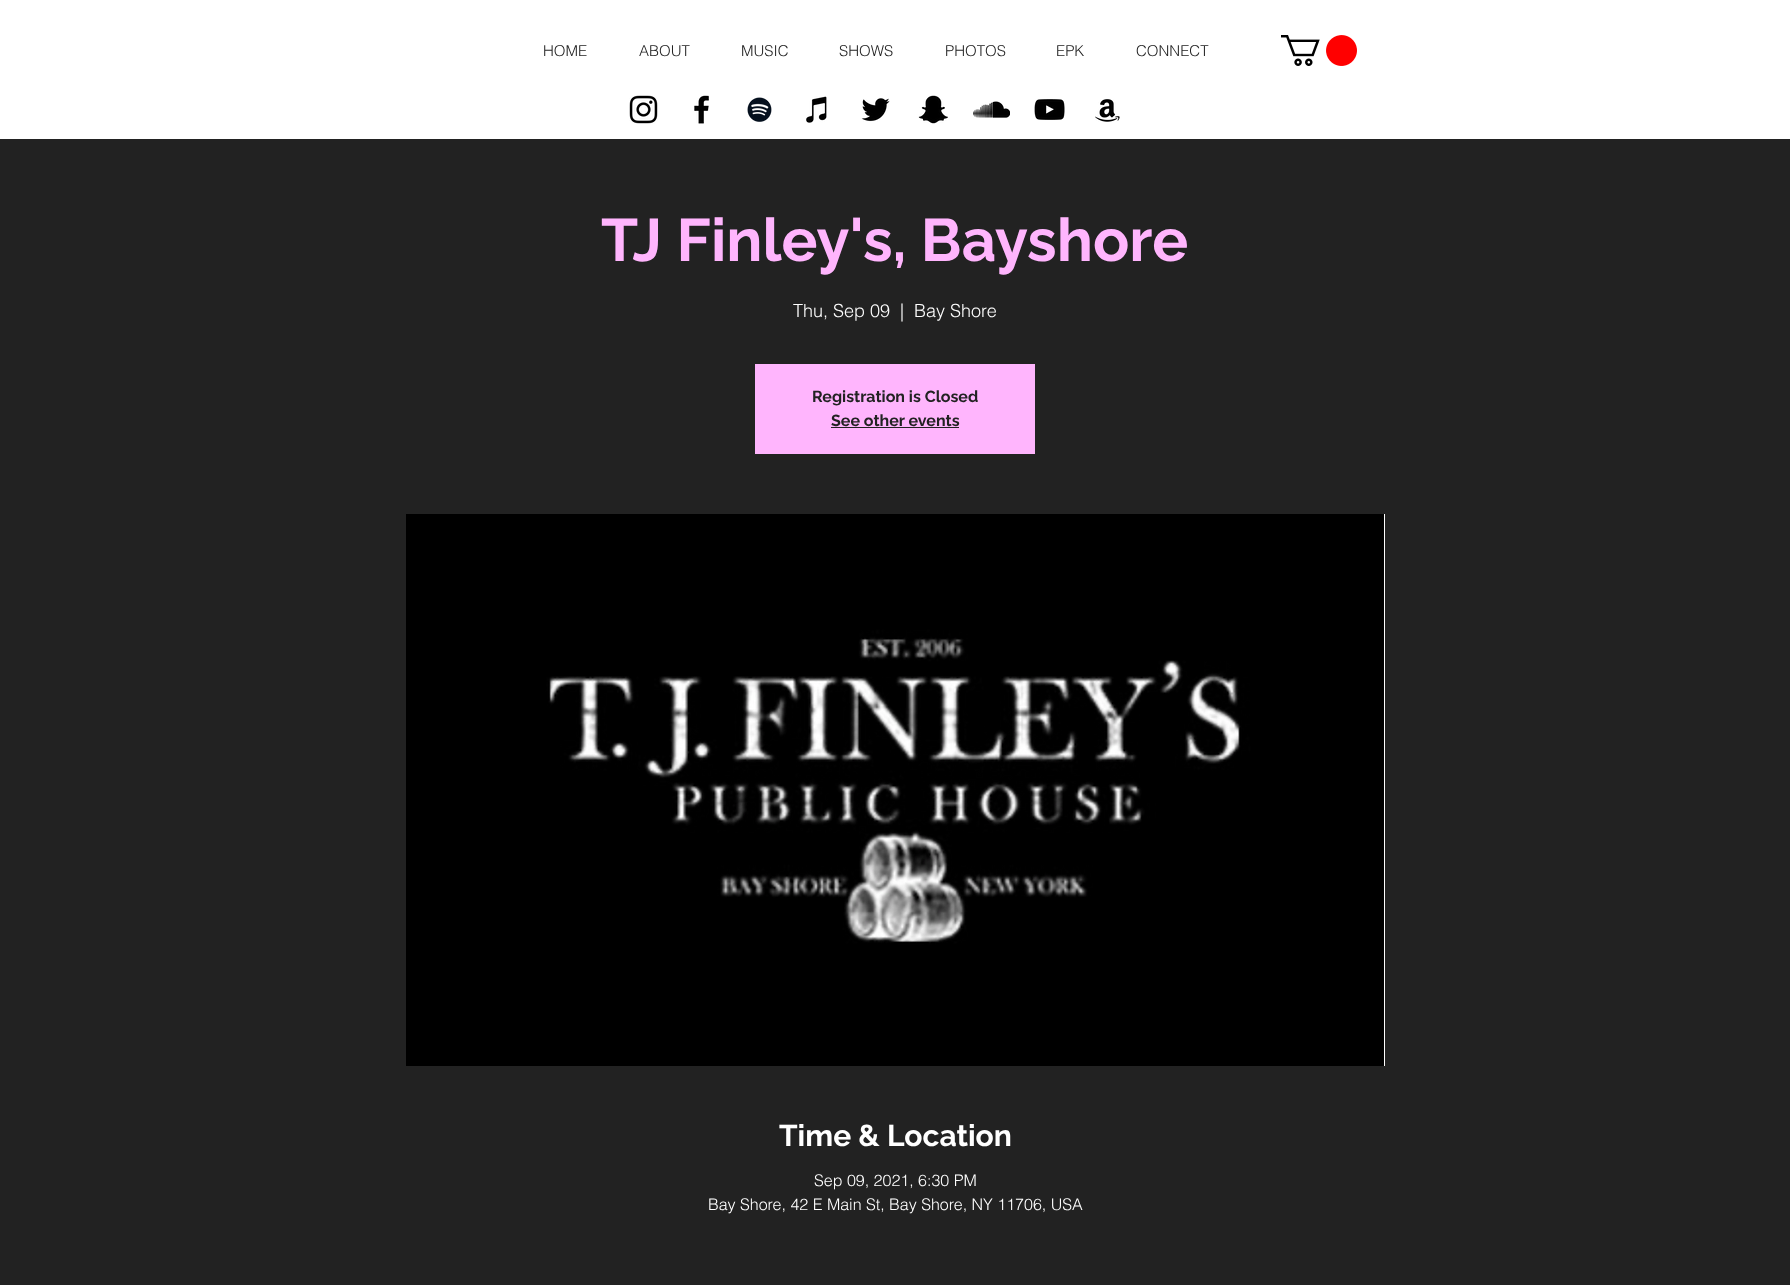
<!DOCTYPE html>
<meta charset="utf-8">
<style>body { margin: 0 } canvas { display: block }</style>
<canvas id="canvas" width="1790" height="1285"></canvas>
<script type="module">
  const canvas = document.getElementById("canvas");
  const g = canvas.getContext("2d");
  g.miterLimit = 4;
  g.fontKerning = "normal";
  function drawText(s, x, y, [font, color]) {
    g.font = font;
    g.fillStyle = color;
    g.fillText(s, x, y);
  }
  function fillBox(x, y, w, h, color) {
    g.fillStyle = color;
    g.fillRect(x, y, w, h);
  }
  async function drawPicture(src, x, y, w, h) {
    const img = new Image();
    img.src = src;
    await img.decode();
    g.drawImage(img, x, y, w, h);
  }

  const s1 = ["300 15px helvetica", "#222222"];
  const s2 = ["bold 60px Raleway", "#FFB5FD"];
  const s3 = ["300 18px helvetica", "#FFFFFF"];
  const s4 = ["bold 16px Raleway", "#222222"];
  const s5 = ["bold 30px Raleway", "#FFFFFF"];
  const s6 = ["300 16px helvetica", "#FFFFFF"];

  fillBox(0, 0, 1790, 1285, "#FFFFFF");
  drawText("HOME", 543, 56, s1);
  drawText("ABOUT", 639, 56, s1);
  drawText("MUSIC", 741, 56, s1);
  drawText("SHOWS", 839, 56, s1);
  drawText("PHOTOS", 945, 56, s1);
  drawText("EPK", 1056, 56, s1);
  drawText("CONNECT", 1136, 56, s1);
  await drawPicture("pic1.png", 1281, 35, 76, 31);
  await drawPicture("pic2.png", 629, 95, 29, 29);
  await drawPicture("pic3.png", 694, 95, 15, 29);
  await drawPicture("pic4.png", 747, 97, 25, 25);
  await drawPicture("pic5.png", 806, 96, 21, 27);
  await drawPicture("pic6.png", 861, 98, 29, 24);
  await drawPicture("pic7.png", 918, 95, 30, 29);
  await drawPicture("pic8.png", 973, 101, 37, 17);
  await drawPicture("pic9.png", 1034, 99, 31, 21);
  await drawPicture("pic10.png", 1095, 99, 25, 23);
  fillBox(0, 139, 1790, 1146, "#222222");
  drawText("TJ Finley's, Bayshore", 601, 261, s2);
  drawText("Thu, Sep 09", 793, 317, s3);
  drawText("|", 900, 317, s3);
  drawText("Bay Shore", 914, 317, s3);
  fillBox(755, 364, 280, 90, "#FFB5FD");
  drawText("Registration is Closed", 812, 402, s4);
  drawText("See other events", 831, 426, s4);
  fillBox(831, 427, 128, 1, "#222222");
  await drawPicture("pic11.png", 406, 514, 979, 552);
  drawText("Time & Location", 779, 1146, s5);
  drawText("Sep 09, 2021, 6:30 PM", 814, 1186, s6);
  drawText("Bay Shore, 42 E Main St, Bay Shore, NY 11706, USA", 708, 1210, s6);
</script>
